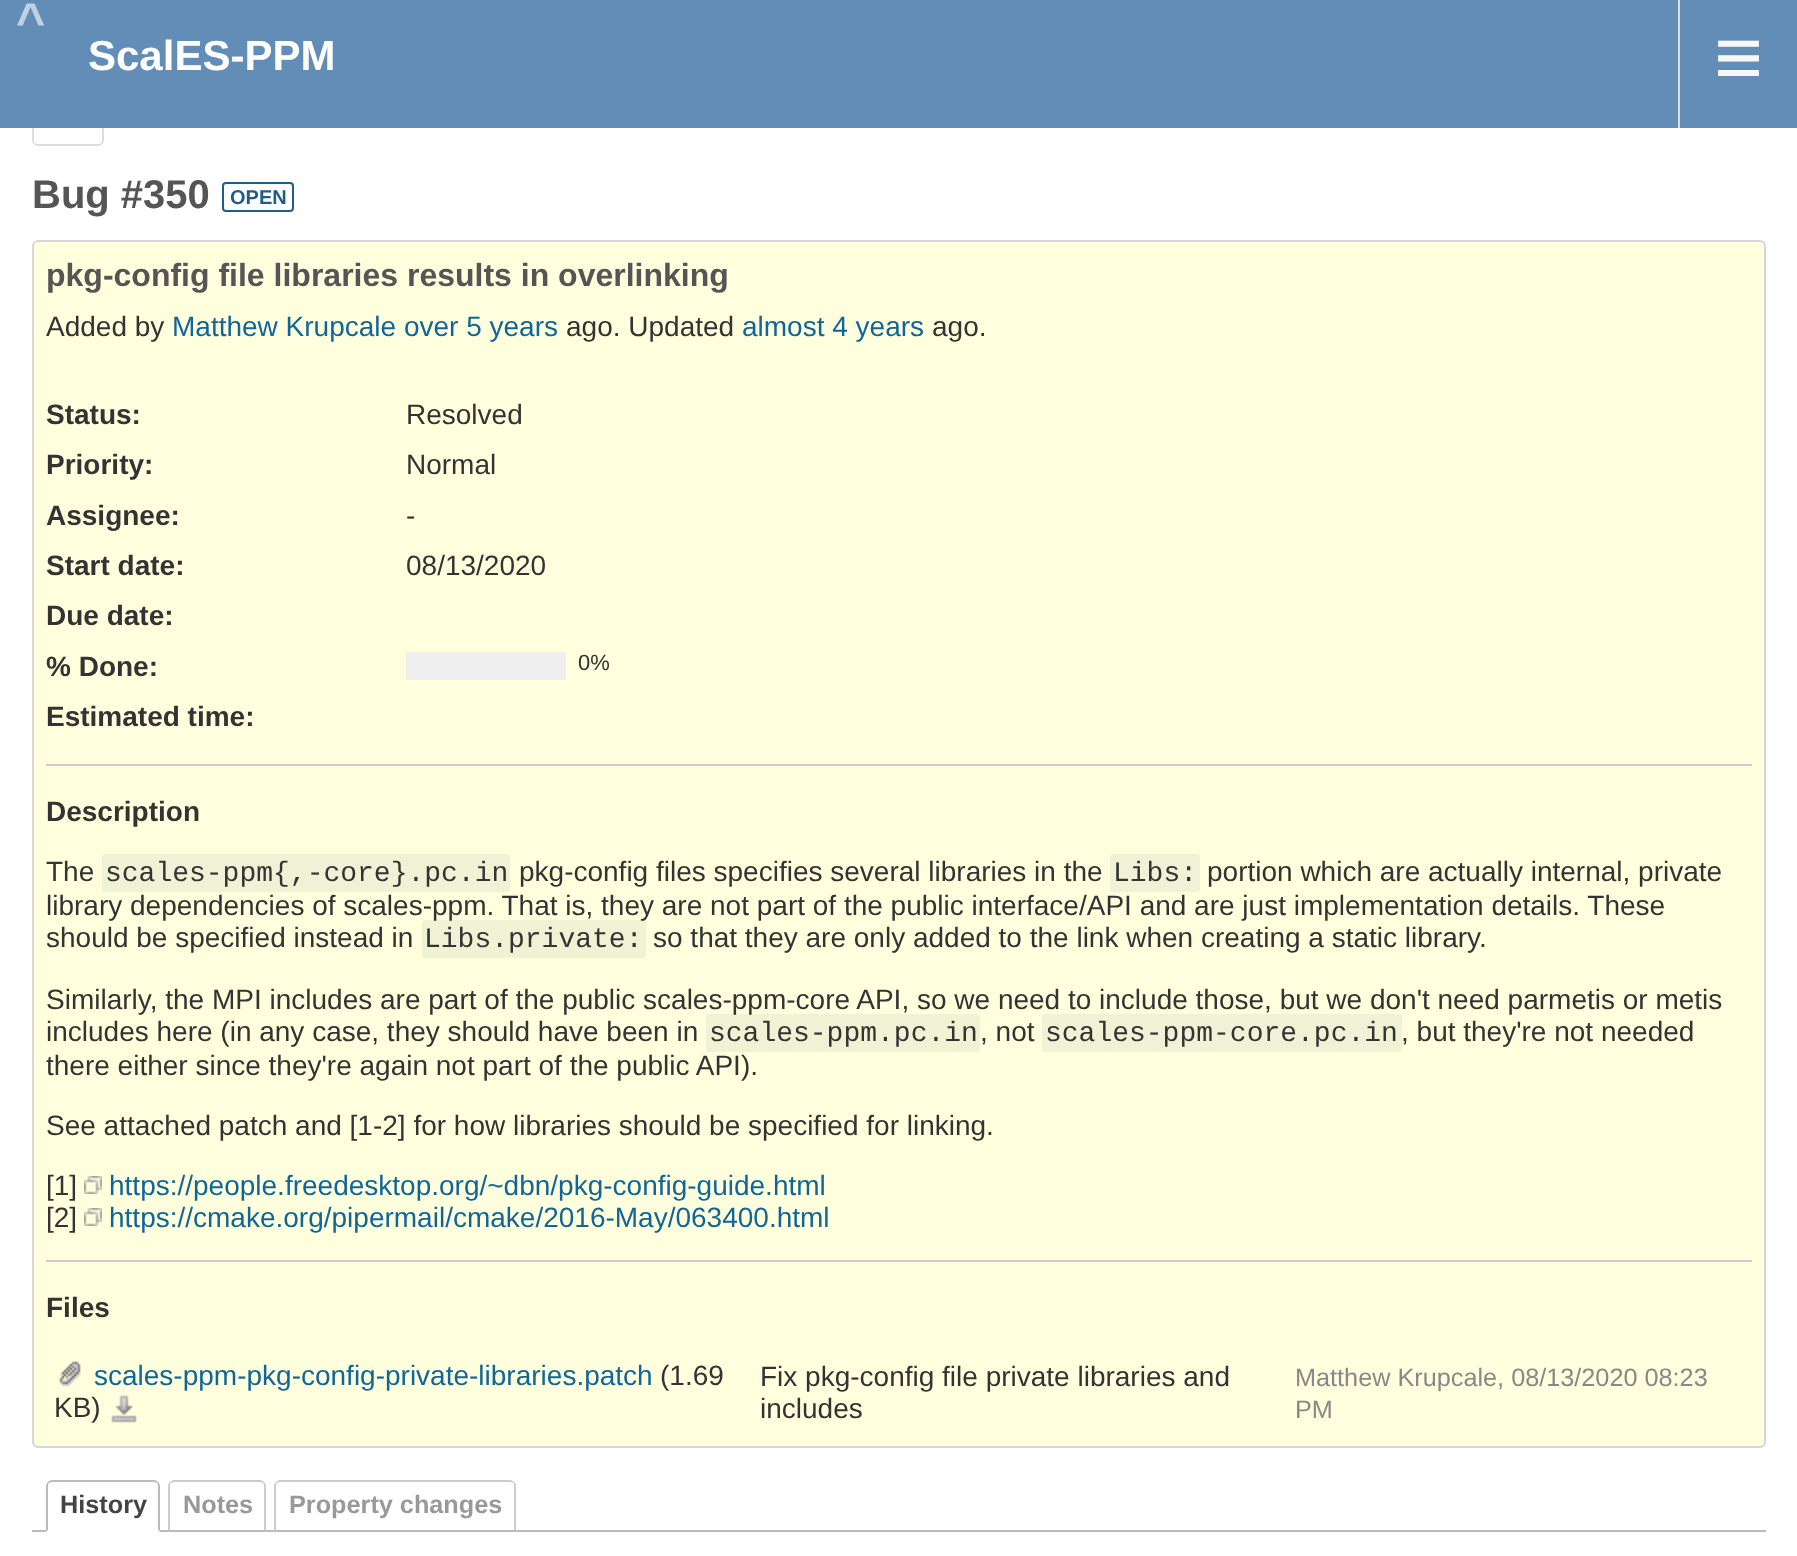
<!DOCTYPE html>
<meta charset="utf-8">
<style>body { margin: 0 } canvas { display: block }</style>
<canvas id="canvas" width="1797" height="1556"></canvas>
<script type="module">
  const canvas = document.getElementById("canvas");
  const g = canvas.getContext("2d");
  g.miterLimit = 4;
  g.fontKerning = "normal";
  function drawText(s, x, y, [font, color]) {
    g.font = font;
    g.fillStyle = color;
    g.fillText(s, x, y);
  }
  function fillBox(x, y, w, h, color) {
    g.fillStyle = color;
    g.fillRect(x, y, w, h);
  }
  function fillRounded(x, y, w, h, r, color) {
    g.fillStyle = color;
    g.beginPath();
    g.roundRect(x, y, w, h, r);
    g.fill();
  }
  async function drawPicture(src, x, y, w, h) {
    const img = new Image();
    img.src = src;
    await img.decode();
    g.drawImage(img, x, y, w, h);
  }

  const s1 = ["bold 50px Liberation Sans", "#C0D1E2"];
  const s2 = ["bold 42px Liberation Sans", "#FFFFFF"];
  const s3 = ["84px Liberation Sans", "#F8F8F8"];
  const s4 = ["bold 40px Liberation Sans", "#555555"];
  const s5 = ["bold 20px Liberation Sans", "#205D86"];
  const s6 = ["bold 32px Liberation Sans", "#555555"];
  const s7 = ["28px Liberation Sans", "#333333"];
  const s8 = ["28px Liberation Sans", "#116699"];
  const s9 = ["bold 28px Liberation Sans", "#333333"];
  const s10 = ["22px Liberation Sans", "#333333"];
  const s11 = ["28px Liberation Mono", "#333333"];
  const s12 = ["25.25px Liberation Sans", "#888888"];
  const s13 = ["bold 25.25px Liberation Sans", "#444444"];
  const s14 = ["bold 25.25px Liberation Sans", "#999999"];

  fillBox(0, 0, 1797, 1556, "#FFFFFF");
  g.beginPath();
  g.roundRect(33, 71, 70, 74, 5);
  g.strokeStyle = "#DDDDDD";
  g.lineWidth = 2;
  g.stroke();
  fillBox(0, 0, 1797, 128, "#628DB6");
  g.letterSpacing = "7px";
  drawText("^", 16, 38, s1);
  g.letterSpacing = "0px";
  drawText("ScalES-PPM", 88, 70, s2);
  fillBox(1678, 0, 2, 128, "#DDDDDD");
  drawText("≡", 1714, 86, s3);
  drawText("Bug #350", 32, 208, s4);
  g.beginPath();
  g.roundRect(223, 183, 70, 28, 3);
  g.strokeStyle = "#205D86";
  g.stroke();
  drawText("OPEN", 230, 204, s5);
  g.fillStyle = "#FFFFDD";
  g.beginPath();
  g.roundRect(33, 241, 1732, 1206, 5);
  g.fill();
  g.strokeStyle = "#D7D7D7";
  g.stroke();
  drawText("pkg-config file libraries results in overlinking", 46, 286, s6);
  drawText("Added by", 46, 336, s7);
  drawText("Matthew Krupcale over 5 years", 172, 336, s8);
  drawText("ago. Updated", 566, 336, s7);
  drawText("almost 4 years", 742, 336, s8);
  drawText("ago.", 932, 336, s7);
  drawText("Status:", 46, 424, s9);
  drawText("Resolved", 406, 424, s7);
  drawText("Priority:", 46, 474, s9);
  drawText("Normal", 406, 474, s7);
  drawText("Assignee:", 46, 525, s9);
  drawText("-", 406, 525, s7);
  drawText("Start date:", 46, 575, s9);
  drawText("08/13/2020", 406, 575, s7);
  drawText("Due date:", 46, 625, s9);
  drawText("% Done:", 46, 676, s9);
  fillBox(406, 652, 160, 28, "#EEEEEE");
  drawText("0%", 578, 670, s10);
  drawText("Estimated time:", 46, 726, s9);
  fillBox(46, 764, 1706, 2, "#CCCCCC");
  drawText("Description", 46, 821, s9);
  drawText("The", 46, 881, s7);
  fillRounded(102, 854, 408, 38, 3, "#F0F2D5");
  drawText("scales-ppm{,-core}.pc.in", 105, 881, s11);
  drawText("pkg-config files specifies several libraries in the", 519, 881, s7);
  fillRounded(1110, 854, 90, 38, 3, "#F0F2D5");
  drawText("Libs:", 1113, 881, s11);
  drawText("portion which are actually internal, private", 1207, 881, s7);
  drawText("library dependencies of scales-ppm. That is, they are not part of the public interface/API and are just implementation details. These", 46, 915, s7);
  drawText("should be specified instead in", 46, 947, s7);
  fillRounded(422, 920, 224, 38, 3, "rgba(62, 91, 118, 0.08)");
  drawText("Libs.private:", 424, 947, s11);
  drawText("so that they are only added to the link when creating a static library.", 653, 947, s7);
  drawText("Similarly, the MPI includes are part of the public scales-ppm-core API, so we need to include those, but we don't need parmetis or metis", 46, 1009, s7);
  drawText("includes here (in any case, they should have been in", 46, 1041, s7);
  fillRounded(706, 1014, 274, 38, 3, "rgba(62, 91, 118, 0.08)");
  drawText("scales-ppm.pc.in", 709, 1041, s11);
  drawText(", not", 980, 1041, s7);
  fillRounded(1042, 1014, 360, 38, 3, "#F0F2D5");
  drawText("scales-ppm-core.pc.in", 1045, 1041, s11);
  drawText(", but they're not needed", 1401, 1041, s7);
  drawText("there either since they're again not part of the public API).", 46, 1075, s7);
  drawText("See attached patch and [1-2] for how libraries should be specified for linking.", 46, 1135, s7);
  drawText("[1]", 46, 1195, s7);
  await drawPicture("pic1.png", 84, 1176, 18, 18);
  drawText("https://people.freedesktop.org/~dbn/pkg-config-guide.html", 109, 1195, s8);
  drawText("[2]", 46, 1227, s7);
  await drawPicture("pic1.png", 84, 1208, 18, 18);
  drawText("https://cmake.org/pipermail/cmake/2016-May/063400.html", 109, 1227, s8);
  fillBox(46, 1260, 1706, 2, "#CCCCCC");
  drawText("Files", 46, 1317, s9);
  await drawPicture("pic2.png", 59, 1361, 22, 26);
  drawText("scales-ppm-pkg-config-private-libraries.patch", 94, 1385, s8);
  drawText("(1.69", 660, 1385, s7);
  drawText("KB)", 54, 1417, s7);
  await drawPicture("pic3.png", 111, 1395, 26, 28);
  drawText("Fix pkg-config file private libraries and", 760, 1386, s7);
  drawText("includes", 760, 1418, s7);
  drawText("Matthew Krupcale, 08/13/2020 08:23", 1295, 1386, s12);
  drawText("PM", 1295, 1418, s12);
  fillBox(32, 1530, 1734, 2, "#BBBBBB");
  g.fillStyle = "#FFFFFF";
  g.beginPath();
  g.roundRect(46, 1480, 114, 52, [6, 6, 0, 0]);
  g.fill();
  g.fillStyle = "#BBBBBB";
  g.beginPath();
  g.moveTo(52, 1480);
  g.bezierCurveTo(50, 1480, 49, 1481, 48, 1482);
  g.lineTo(49, 1483);
  g.lineTo(52, 1482);
  g.lineTo(154, 1482);
  g.lineTo(157, 1483);
  g.lineTo(158, 1482);
  g.bezierCurveTo(157, 1481, 156, 1480, 154, 1480);
  g.closePath();
  g.fill();
  g.beginPath();
  g.moveTo(160, 1532);
  g.lineTo(160, 1486);
  g.bezierCurveTo(160, 1484, 159, 1483, 158, 1482);
  g.lineTo(157, 1483);
  g.bezierCurveTo(158, 1484, 158, 1485, 158, 1486);
  g.lineTo(158, 1530);
  g.closePath();
  g.fill();
  g.fillStyle = "#FFFFFF";
  g.beginPath();
  g.moveTo(160, 1532);
  g.lineTo(158, 1530);
  g.lineTo(48, 1530);
  g.lineTo(46, 1532);
  g.closePath();
  g.fill();
  g.fillStyle = "#BBBBBB";
  g.beginPath();
  g.moveTo(46, 1532);
  g.lineTo(48, 1530);
  g.lineTo(48, 1486);
  g.bezierCurveTo(48, 1485, 48, 1484, 49, 1483);
  g.lineTo(48, 1482);
  g.bezierCurveTo(47, 1483, 46, 1484, 46, 1486);
  g.closePath();
  g.fill();
  drawText("History", 60, 1513, s13);
  g.fillStyle = "#CCCCCC";
  g.beginPath();
  g.moveTo(174, 1480);
  g.bezierCurveTo(172, 1480, 171, 1481, 170, 1482);
  g.lineTo(171, 1483);
  g.lineTo(174, 1482);
  g.lineTo(260, 1482);
  g.lineTo(263, 1483);
  g.lineTo(264, 1482);
  g.bezierCurveTo(263, 1481, 262, 1480, 260, 1480);
  g.closePath();
  g.fill();
  g.beginPath();
  g.moveTo(266, 1532);
  g.lineTo(266, 1486);
  g.bezierCurveTo(266, 1484, 265, 1483, 264, 1482);
  g.lineTo(263, 1483);
  g.bezierCurveTo(264, 1484, 264, 1485, 264, 1486);
  g.lineTo(264, 1530);
  g.closePath();
  g.fill();
  g.fillStyle = "#BBBBBB";
  g.beginPath();
  g.moveTo(266, 1532);
  g.lineTo(264, 1530);
  g.lineTo(170, 1530);
  g.lineTo(168, 1532);
  g.closePath();
  g.fill();
  g.fillStyle = "#CCCCCC";
  g.beginPath();
  g.moveTo(168, 1532);
  g.lineTo(170, 1530);
  g.lineTo(170, 1486);
  g.bezierCurveTo(170, 1485, 170, 1484, 171, 1483);
  g.lineTo(170, 1482);
  g.bezierCurveTo(169, 1483, 168, 1484, 168, 1486);
  g.closePath();
  g.fill();
  drawText("Notes", 183, 1513, s14);
  g.fillStyle = "#CCCCCC";
  g.beginPath();
  g.moveTo(280, 1480);
  g.bezierCurveTo(278, 1480, 277, 1481, 276, 1482);
  g.lineTo(277, 1483);
  g.bezierCurveTo(278, 1482, 279, 1482, 280, 1482);
  g.lineTo(510, 1482);
  g.bezierCurveTo(511, 1482, 512, 1482, 513, 1483);
  g.lineTo(514, 1482);
  g.bezierCurveTo(513, 1481, 512, 1480, 510, 1480);
  g.closePath();
  g.fill();
  g.beginPath();
  g.moveTo(516, 1532);
  g.lineTo(516, 1486);
  g.bezierCurveTo(516, 1484, 515, 1483, 514, 1482);
  g.lineTo(513, 1483);
  g.bezierCurveTo(514, 1484, 514, 1485, 514, 1486);
  g.lineTo(514, 1530);
  g.closePath();
  g.fill();
  g.fillStyle = "#BBBBBB";
  g.beginPath();
  g.moveTo(516, 1532);
  g.lineTo(514, 1530);
  g.lineTo(276, 1530);
  g.lineTo(274, 1532);
  g.closePath();
  g.fill();
  g.fillStyle = "#CCCCCC";
  g.beginPath();
  g.moveTo(274, 1532);
  g.lineTo(276, 1530);
  g.lineTo(276, 1486);
  g.bezierCurveTo(276, 1485, 276, 1484, 277, 1483);
  g.lineTo(276, 1482);
  g.bezierCurveTo(275, 1483, 274, 1484, 274, 1486);
  g.closePath();
  g.fill();
  drawText("Property changes", 289, 1513, s14);
</script>
